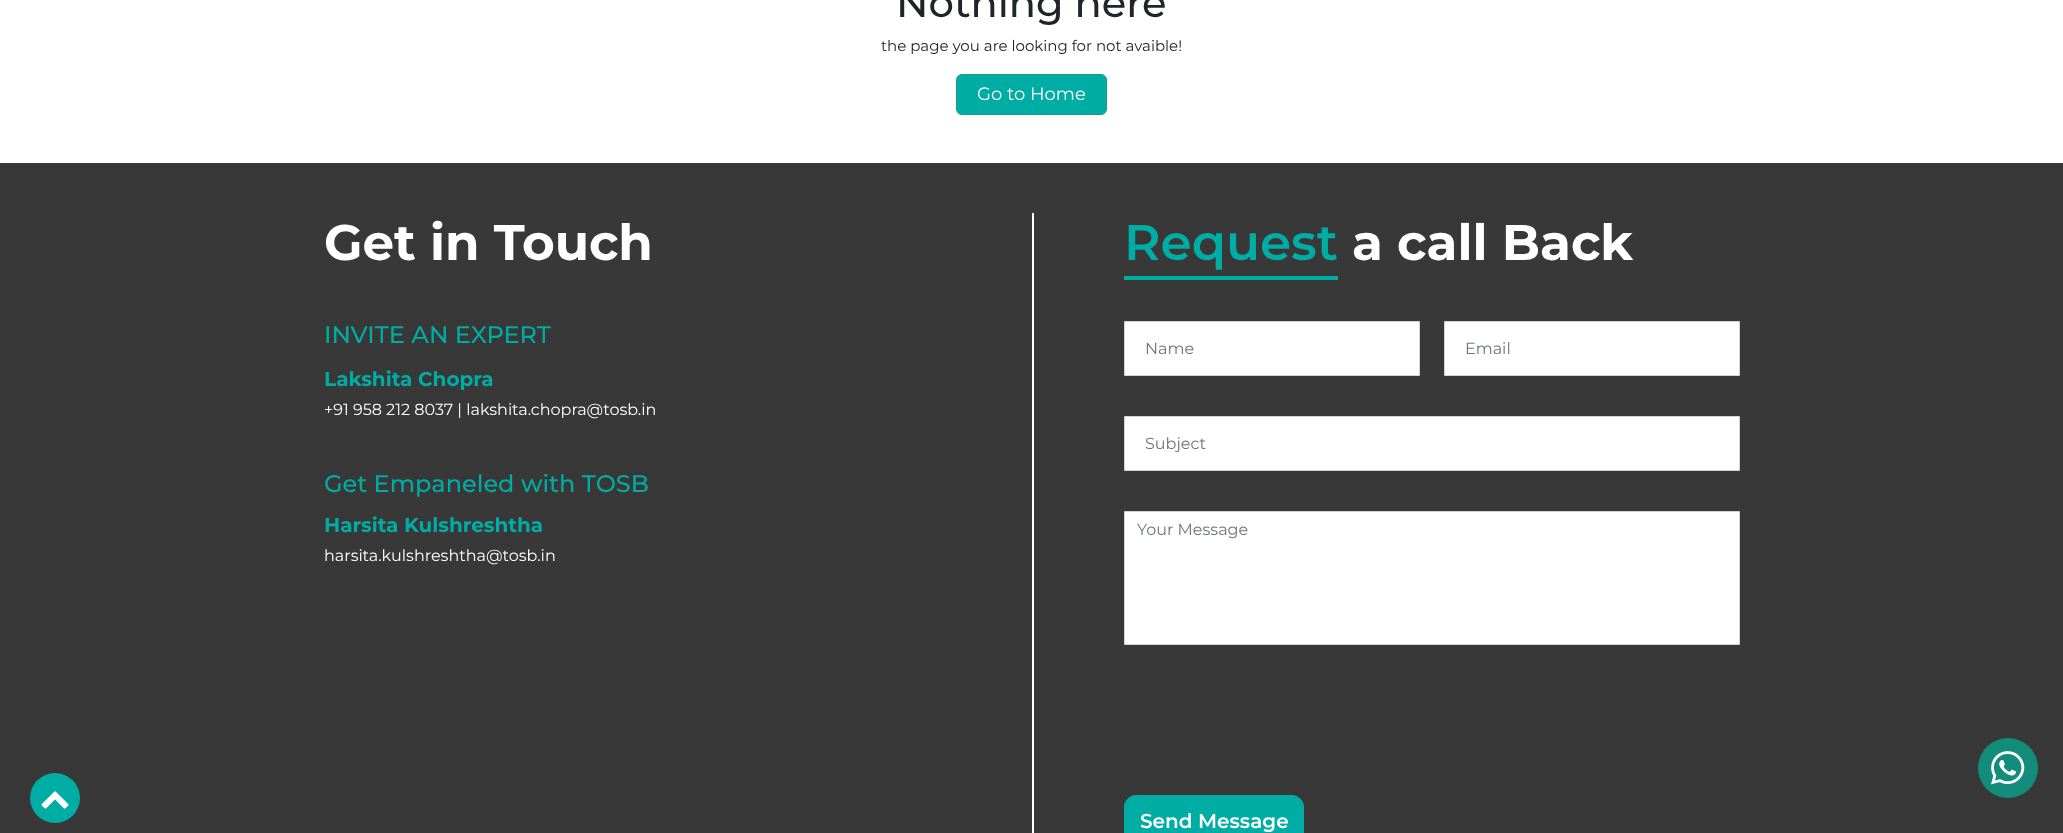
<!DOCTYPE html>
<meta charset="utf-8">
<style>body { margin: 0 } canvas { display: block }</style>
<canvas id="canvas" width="2063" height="833"></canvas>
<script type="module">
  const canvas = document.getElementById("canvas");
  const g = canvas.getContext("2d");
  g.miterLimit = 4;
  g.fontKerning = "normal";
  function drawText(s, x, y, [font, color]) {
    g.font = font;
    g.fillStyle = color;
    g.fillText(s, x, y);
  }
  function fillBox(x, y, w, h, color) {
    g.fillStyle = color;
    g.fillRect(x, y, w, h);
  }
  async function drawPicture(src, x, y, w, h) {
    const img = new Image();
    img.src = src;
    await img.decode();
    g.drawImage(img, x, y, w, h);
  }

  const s1 = ["500 40px Montserrat", "#212529"];
  const s2 = ["15px Montserrat", "#212529"];
  const s3 = ["18px Montserrat", "#FFFFFF"];
  const s4 = ["bold 50px Montserrat", "#FFFFFF"];
  const s5 = ["500 24px Montserrat", "#00ADA4"];
  const s6 = ["bold 20px Montserrat", "#00ADA4"];
  const s7 = ["16px Montserrat", "#FFFFFF"];
  const s8 = ["600 50px Montserrat", "#00ADA4"];
  const s9 = ["16px Montserrat", "#6C757D"];
  const s10 = ["600 20px Montserrat", "#FFFFFF"];

  fillBox(0, 0, 2063, 833, "#FFFFFF");
  drawText("Nothing here", 896, 17, s1);
  drawText("the page you are looking for not avaible!", 881, 51, s2);
  g.fillStyle = "#00ADA4";
  g.beginPath();
  g.roundRect(956.5, 74.5, 150, 40, 5.5);
  g.fill();
  g.strokeStyle = "#1B998B";
  g.stroke();
  drawText("Go to Home", 977, 100, s3);
  fillBox(0, 163, 2063, 670, "#383838");
  g.fillStyle = "#00ADA4";
  g.beginPath();
  g.arc(55, 798, 25, 0, Math.PI * 2);
  g.fill();
  await drawPicture("pic1.png", 41, 791, 28, 18);
  drawText("Get in Touch", 324, 260, s4);
  fillBox(1032, 213, 2, 620, "#FFFFFF");
  drawText("INVITE AN EXPERT", 324, 343, s5);
  drawText("Lakshita Chopra", 324, 386, s6);
  drawText("+91 958 212 8037 | lakshita.chopra@tosb.in", 324, 415, s7);
  drawText("Get Empaneled with TOSB", 324, 492, s5);
  drawText("Harsita Kulshreshtha", 324, 532, s6);
  drawText("harsita.kulshreshtha@tosb.in", 324, 561, s7);
  drawText("Request", 1124, 260, s8);
  fillBox(1124, 276, 214, 4, "#00ADA4");
  drawText("a call Back", 1352, 260, s4);
  g.beginPath();
  g.rect(1124.5, 321.5, 295, 54);
  g.fill();
  g.strokeStyle = "#CED4DA";
  g.stroke();
  drawText("Name", 1145, 354, s9);
  g.fillStyle = "#FFFFFF";
  g.beginPath();
  g.rect(1444.5, 321.5, 295, 54);
  g.fill();
  g.stroke();
  drawText("Email", 1465, 354, s9);
  g.fillStyle = "#FFFFFF";
  g.beginPath();
  g.rect(1124.5, 416.5, 615, 54);
  g.fill();
  g.stroke();
  drawText("Subject", 1145, 449, s9);
  g.fillStyle = "#FFFFFF";
  g.beginPath();
  g.rect(1124.5, 511.5, 615, 133);
  g.fill();
  g.stroke();
  drawText("Your Message", 1137, 535, s9);
  g.fillStyle = "#00ADA4";
  g.beginPath();
  g.roundRect(1124.5, 795.5, 179, 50, 11.5);
  g.fill();
  g.strokeStyle = "#00ADA4";
  g.stroke();
  drawText("Send Message", 1140, 828, s10);
  g.fillStyle = "#138C7B";
  g.beginPath();
  g.arc(2008, 768, 30, 0, Math.PI * 2);
  g.fill();
  await drawPicture("pic2.png", 1991, 751, 34, 34);
</script>
